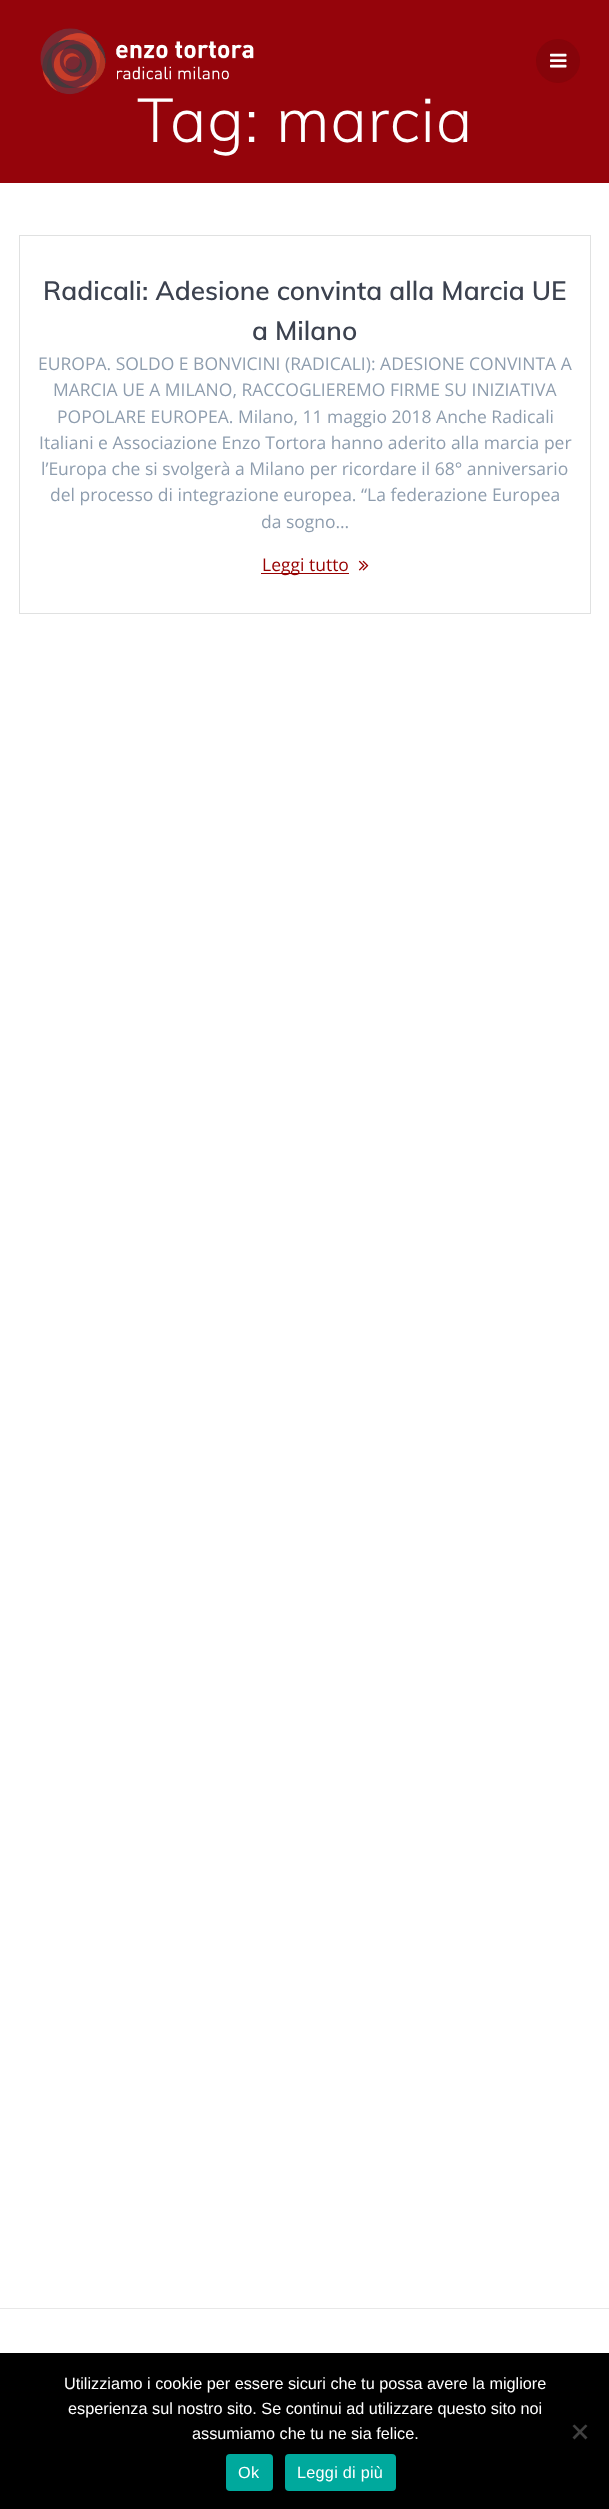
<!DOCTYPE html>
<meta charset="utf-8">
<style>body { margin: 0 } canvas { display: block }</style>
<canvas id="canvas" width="609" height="2509"></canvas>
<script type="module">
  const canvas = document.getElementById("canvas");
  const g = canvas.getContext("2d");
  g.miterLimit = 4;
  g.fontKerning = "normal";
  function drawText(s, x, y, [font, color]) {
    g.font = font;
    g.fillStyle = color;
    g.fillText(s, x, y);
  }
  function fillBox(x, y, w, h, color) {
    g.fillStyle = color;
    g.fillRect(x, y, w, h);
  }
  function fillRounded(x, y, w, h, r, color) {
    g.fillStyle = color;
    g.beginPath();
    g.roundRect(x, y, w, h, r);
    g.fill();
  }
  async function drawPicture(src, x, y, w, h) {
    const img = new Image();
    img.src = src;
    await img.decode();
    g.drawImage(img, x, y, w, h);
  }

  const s1 = ["300 61.25px Muli", "#FFFFFF"];
  const s2 = ["600 26.25px Muli", "#3C424F"];
  const s3 = ["17.5px Open Sans", "#8E9DAE"];
  const s4 = ["17.5px Open Sans", "#970000"];
  const s5 = ["16.25px Liberation Sans", "#FFFFFF"];

  fillBox(0, 0, 609, 2509, "#FFFFFF");
  fillBox(0, 0, 609, 183, "#95040B");
  await drawPicture("pic1.png", 40, 28, 214, 67);
  g.fillStyle = "#86040A";
  g.beginPath();
  g.arc(558, 61, 22, 0, Math.PI * 2);
  g.fill();
  await drawPicture("pic2.png", 550, 53, 17, 15);
  g.letterSpacing = "1.1px";
  drawText("Tag: marcia", 137, 142, s1);
  g.strokeStyle = "#E0E1E1";
  g.strokeRect(19.5, 235.5, 571, 378);
  g.letterSpacing = "0px";
  drawText("Radicali: Adesione convinta alla Marcia UE", 43, 300, s2);
  drawText("a Milano", 252, 340, s2);
  drawText("EUROPA. SOLDO E BONVICINI (RADICALI): ADESIONE CONVINTA A", 38, 370, s3);
  drawText("MARCIA UE A MILANO, RACCOGLIEREMO FIRME SU INIZIATIVA", 53, 396, s3);
  drawText("POPOLARE EUROPEA. Milano, 11 maggio 2018 Anche Radicali", 57, 423, s3);
  drawText("Italiani e Associazione Enzo Tortora hanno aderito alla marcia per", 39, 449, s3);
  drawText("l’Europa che si svolgerà a Milano per ricordare il 68° anniversario", 41, 475, s3);
  drawText("del processo di integrazione europea. “La federazione Europea", 50, 501, s3);
  drawText("da sogno…", 261, 528, s3);
  fillBox(261, 573, 88, 1, "#970000");
  drawText("Leggi tutto", 262, 571, s4);
  await drawPicture("pic3.png", 358, 560, 11, 11);
  fillBox(0, 2308, 609, 1, "#E8E8E8");
  fillBox(0, 2353, 609, 156, "#000000");
  drawText("Utilizziamo i cookie per essere sicuri che tu possa avere la migliore", 64, 2389, s5);
  drawText("esperienza sul nostro sito. Se continui ad utilizzare questo sito noi", 68, 2414, s5);
  drawText("assumiamo che tu ne sia felice.", 192, 2439, s5);
  g.fillStyle = "#404040";
  g.beginPath();
  g.moveTo(585.5, 2424.5);
  g.lineTo(587.5, 2426);
  g.lineTo(574.5, 2439.5);
  g.lineTo(572.5, 2437.5);
  g.closePath();
  g.fill();
  g.beginPath();
  g.moveTo(572.5, 2426);
  g.lineTo(574.5, 2424.5);
  g.lineTo(587.5, 2437.5);
  g.lineTo(585.5, 2439.5);
  g.closePath();
  g.fill();
  fillRounded(226, 2454, 47, 37, 4, "#00A99D");
  g.letterSpacing = "0.25px";
  drawText("Ok", 238, 2478, s5);
  fillRounded(285, 2454, 111, 37, 4, "#00A99D");
  drawText("Leggi di più", 297, 2478, s5);
</script>
